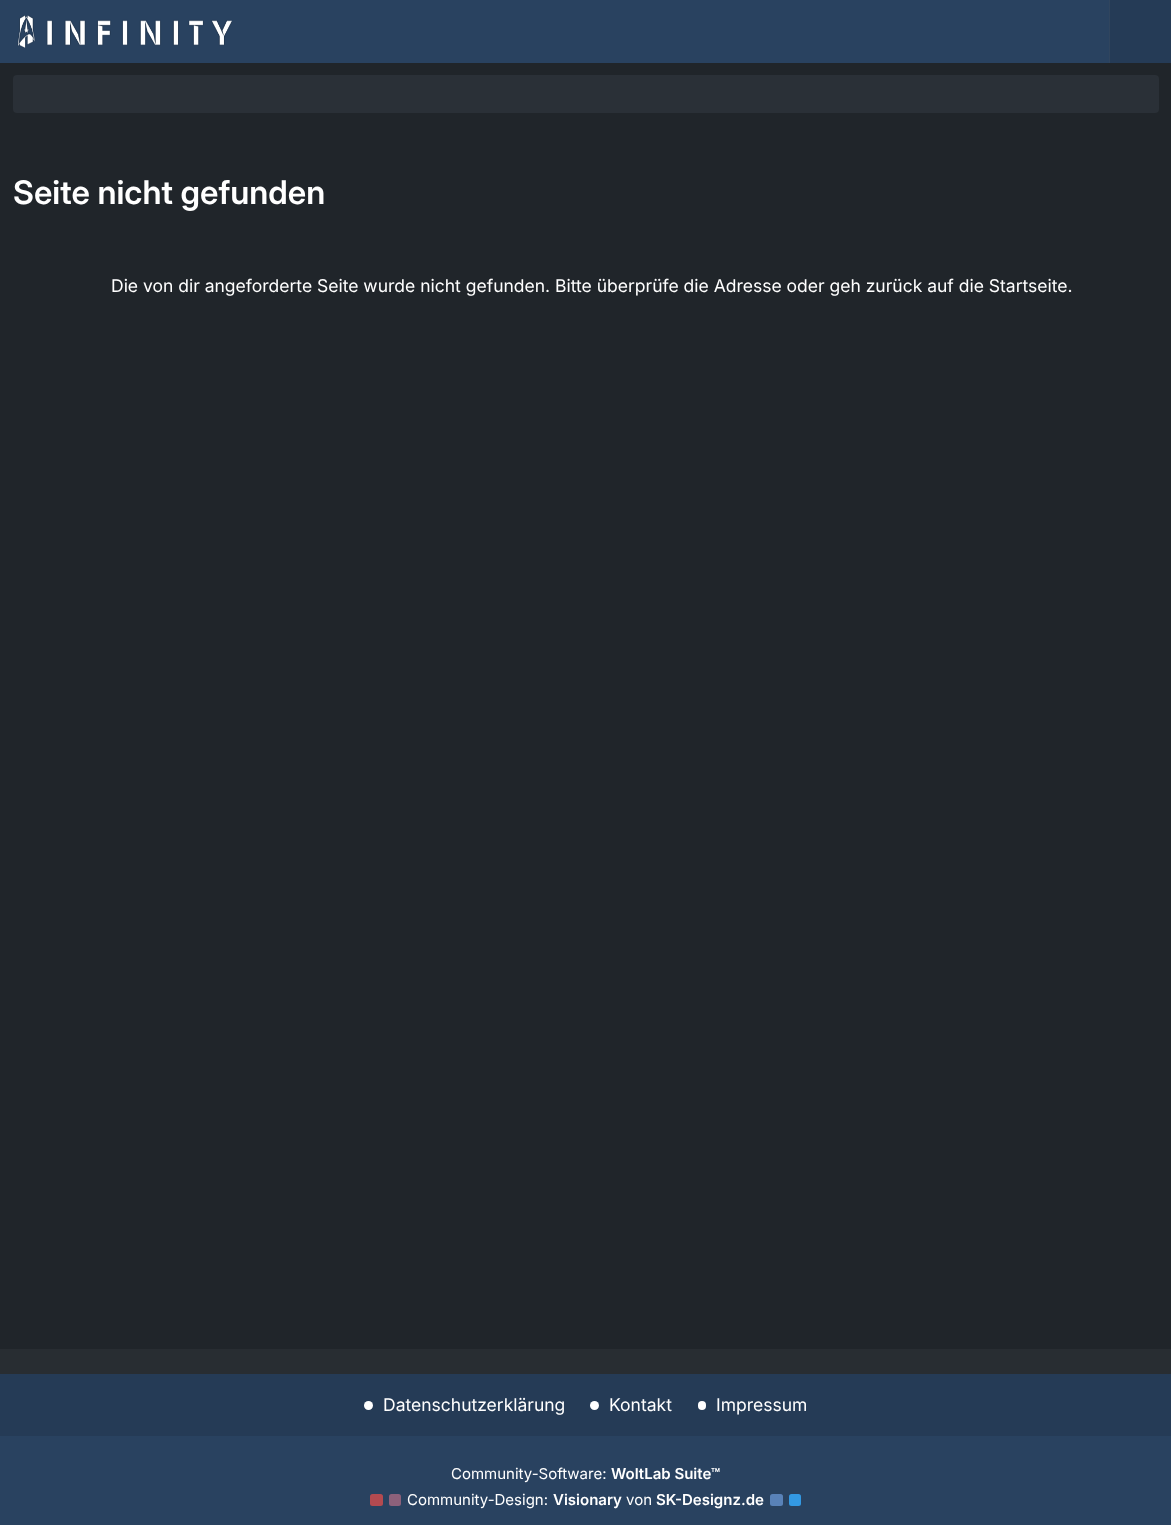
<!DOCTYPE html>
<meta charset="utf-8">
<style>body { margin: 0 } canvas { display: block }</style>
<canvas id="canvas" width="1171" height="1525"></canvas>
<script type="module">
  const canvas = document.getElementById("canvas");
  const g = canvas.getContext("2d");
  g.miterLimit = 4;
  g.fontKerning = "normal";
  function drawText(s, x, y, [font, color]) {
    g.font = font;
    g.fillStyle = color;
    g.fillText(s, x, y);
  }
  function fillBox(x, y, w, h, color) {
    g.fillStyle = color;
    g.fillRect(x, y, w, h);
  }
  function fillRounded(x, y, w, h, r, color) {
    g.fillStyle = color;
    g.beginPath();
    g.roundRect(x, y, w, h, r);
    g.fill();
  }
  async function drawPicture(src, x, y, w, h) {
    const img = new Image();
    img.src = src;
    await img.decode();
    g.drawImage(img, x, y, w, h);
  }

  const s1 = ["600 32.5px 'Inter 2'", "#FFFFFF"];
  const s2 = ["17.5px Inter", "#FFFFFF"];
  const s3 = ["15px Inter", "#FFFFFF"];
  const s4 = ["600 15px Inter", "#FFFFFF"];

  fillBox(0, 0, 1171, 1525, "#282D32");
  fillBox(0, 0, 1109, 63, "#294260");
  await drawPicture("pic1.png", 17, 15, 215, 33);
  fillBox(1110, 0, 61, 63, "#253B56");
  fillBox(1109, 0, 1, 63, "#30455E");
  fillBox(0, 63, 1171, 1286, "#20252A");
  fillRounded(13, 75, 1146, 38, 4, "#2A3037");
  drawText("Seite nicht gefunden", 13, 204, s1);
  drawText("Die von dir angeforderte Seite wurde nicht gefunden. Bitte überprüfe die Adresse oder geh zurück auf die Startseite.", 111, 292, s2);
  fillBox(0, 1374, 1171, 62, "#253B56");
  g.fillStyle = "#FFFFFF";
  g.beginPath();
  g.arc(368.5, 1405.5, 4.5, 0, Math.PI * 2);
  g.fill();
  drawText("Datenschutzerklärung", 383, 1411, s2);
  g.beginPath();
  g.arc(594.5, 1405.5, 4.5, 0, Math.PI * 2);
  g.fill();
  drawText("Kontakt", 609, 1411, s2);
  fillRounded(698, 1401, 8, 9, 4, "#FFFFFF");
  drawText("Impressum", 716, 1411, s2);
  fillBox(0, 1436, 1171, 89, "#294260");
  drawText("Community-Software:", 451, 1479, s3);
  drawText("WoltLab Suite™", 611, 1479, s4);
  fillRounded(370, 1494, 13, 12, 2.5, "#B34A50");
  fillRounded(389, 1494, 12, 12, 2.5, "#8D617B");
  drawText("Community-Design:", 407, 1505, s3);
  drawText("Visionary", 553, 1505, s4);
  drawText("von", 626, 1505, s3);
  drawText("SK-Designz.de", 656, 1505, s4);
  fillRounded(770, 1494, 13, 12, 2.5, "#5982B8");
  fillRounded(789, 1494, 12, 12, 2.5, "#3399E3");
</script>
